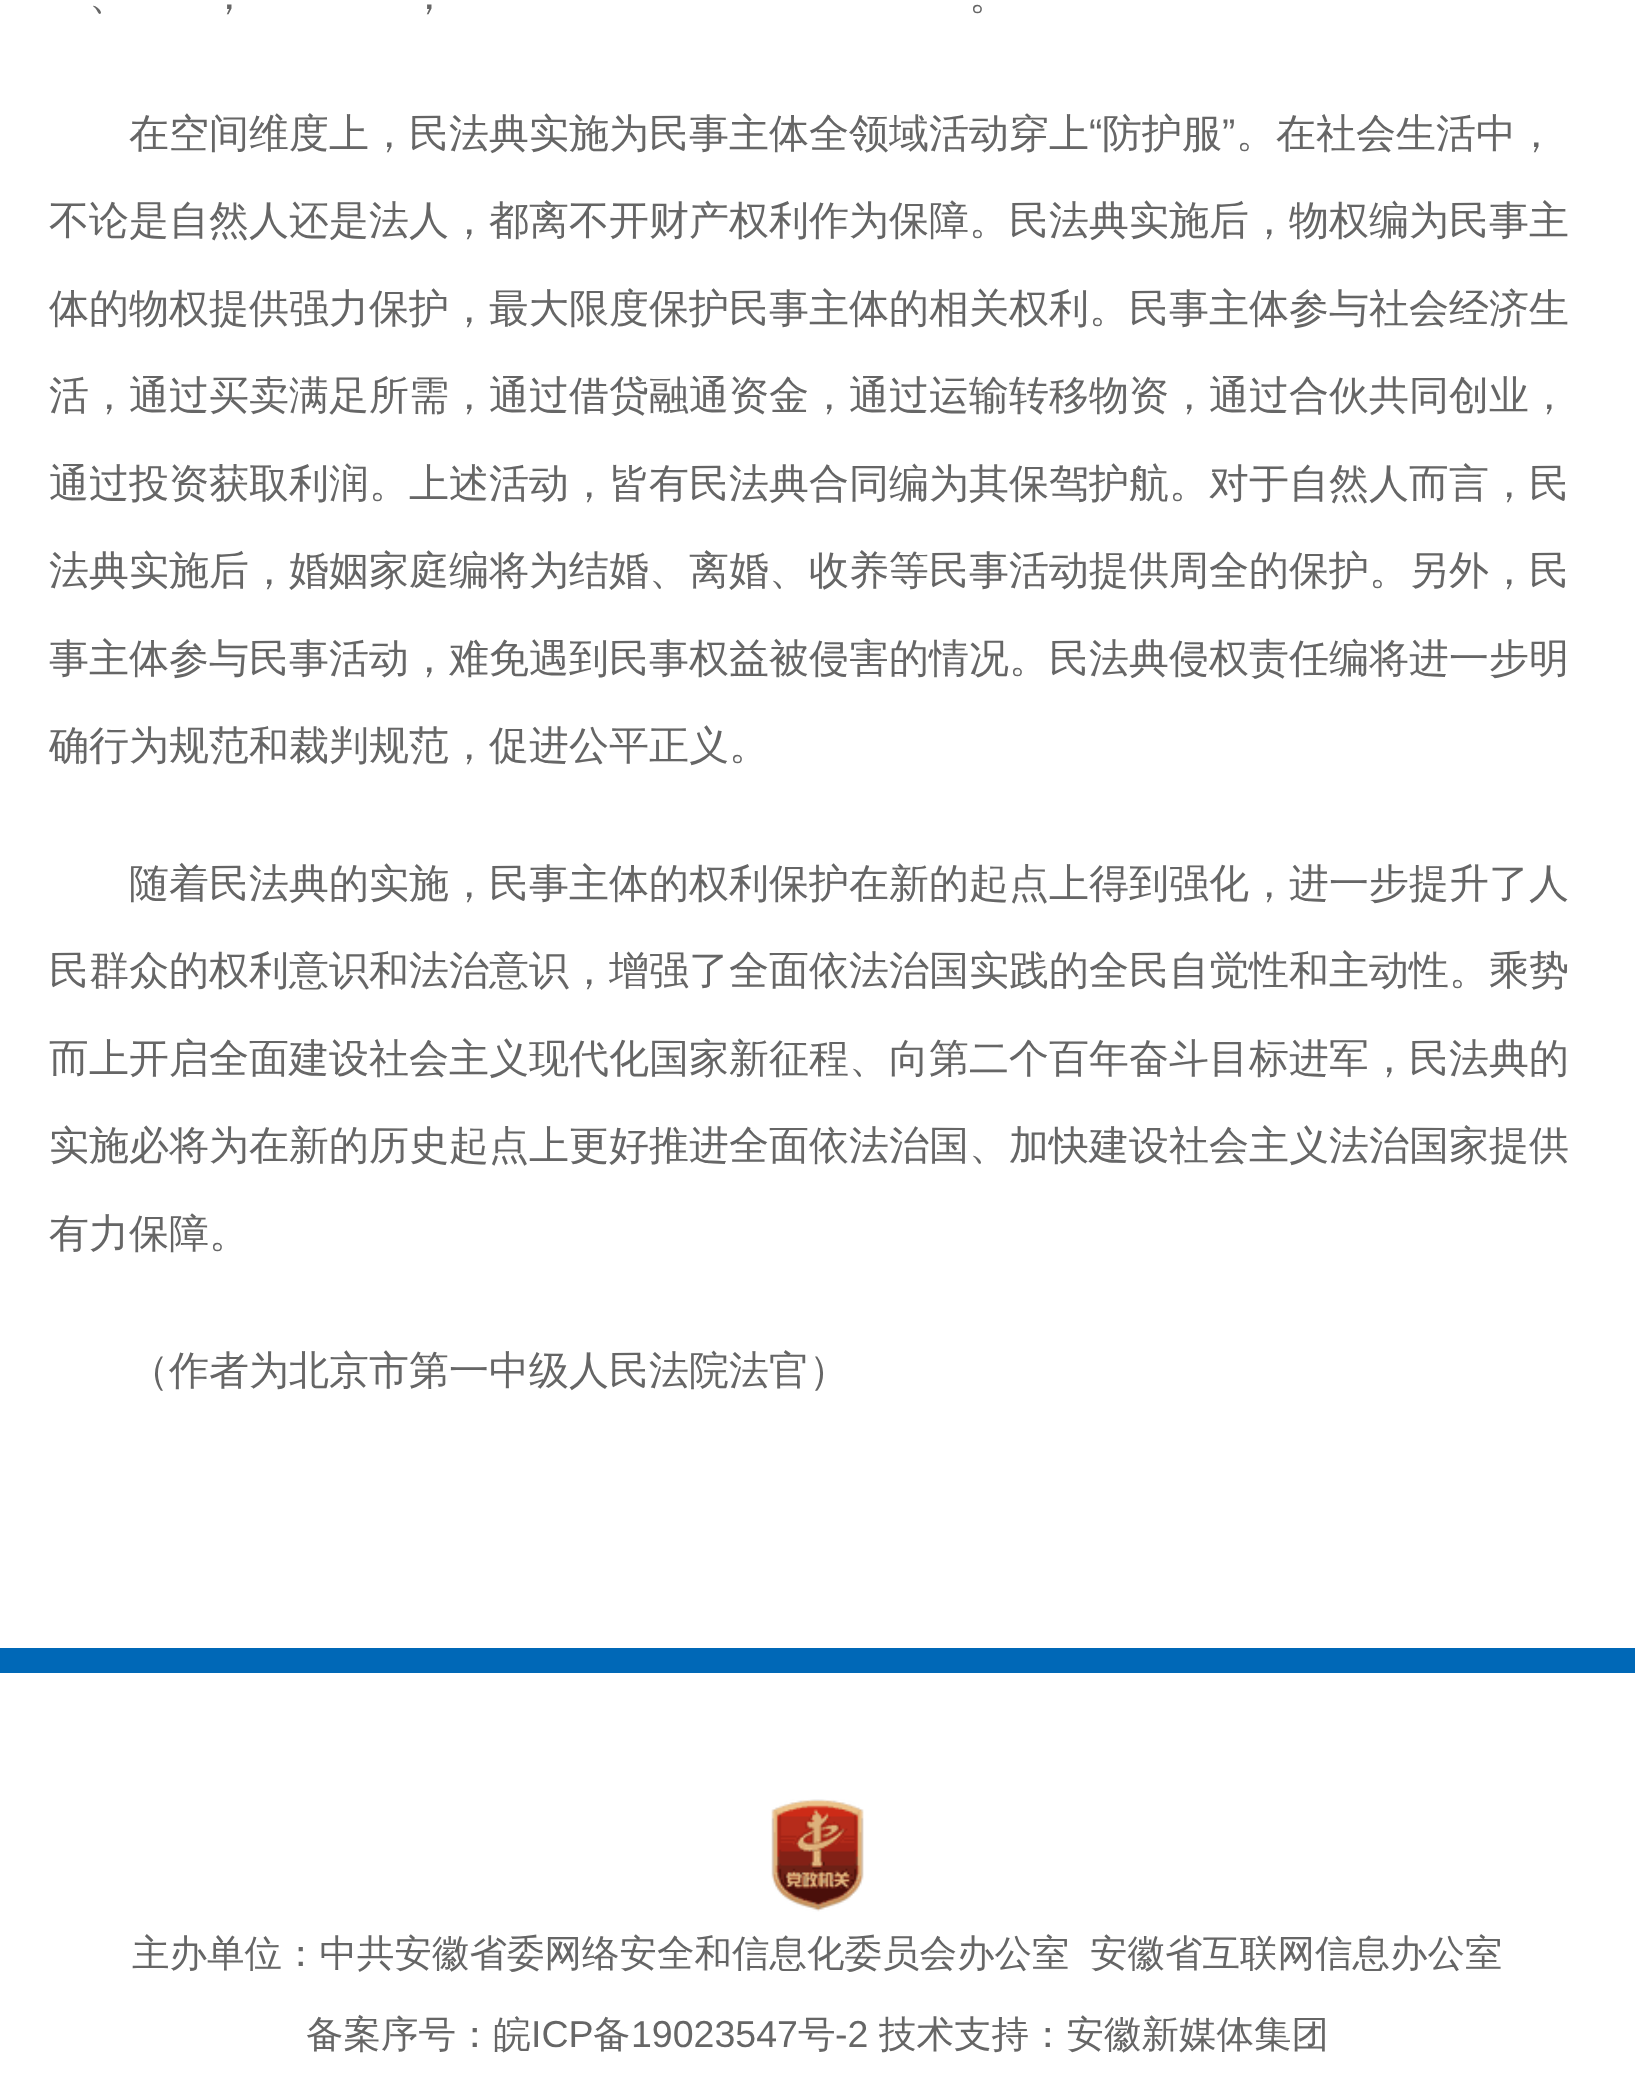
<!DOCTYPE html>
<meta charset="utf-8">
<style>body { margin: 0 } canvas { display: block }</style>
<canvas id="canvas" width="1635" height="2086"></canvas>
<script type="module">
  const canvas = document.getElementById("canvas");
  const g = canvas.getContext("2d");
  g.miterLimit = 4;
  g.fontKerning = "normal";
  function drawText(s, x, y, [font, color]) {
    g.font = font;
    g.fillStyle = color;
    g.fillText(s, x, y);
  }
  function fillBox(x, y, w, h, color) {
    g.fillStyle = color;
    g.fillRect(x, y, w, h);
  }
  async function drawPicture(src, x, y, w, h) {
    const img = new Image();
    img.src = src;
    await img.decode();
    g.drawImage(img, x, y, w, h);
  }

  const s1 = ["500 40px WenQuanYi Zen Hei", "#666666"];
  const s2 = ["40px Liberation Sans", "#666666"];
  const s3 = ["500 37.5px WenQuanYi Zen Hei", "#666666"];
  const s4 = ["37.5px Liberation Sans", "#666666"];

  fillBox(0, 0, 1635, 2086, "#FFFFFF");
  drawText("、", 89, 9, s1);
  drawText("，", 209, 9, s1);
  drawText("，", 409, 9, s1);
  drawText("。", 969, 9, s1);
  drawText("在空间维度上，民法典实施为民事主体全领域活动穿上", 129, 147, s1);
  drawText("“", 1089, 147, s2);
  drawText("防护服", 1102, 147, s1);
  drawText("”", 1222, 147, s2);
  drawText("。在社会生活中，", 1236, 147, s1);
  drawText("不论是自然人还是法人，都离不开财产权利作为保障。民法典实施后，物权编为民事主", 49, 234, s1);
  drawText("体的物权提供强力保护，最大限度保护民事主体的相关权利。民事主体参与社会经济生", 49, 322, s1);
  drawText("活，通过买卖满足所需，通过借贷融通资金，通过运输转移物资，通过合伙共同创业，", 49, 409, s1);
  drawText("通过投资获取利润。上述活动，皆有民法典合同编为其保驾护航。对于自然人而言，民", 49, 497, s1);
  drawText("法典实施后，婚姻家庭编将为结婚、离婚、收养等民事活动提供周全的保护。另外，民", 49, 584, s1);
  drawText("事主体参与民事活动，难免遇到民事权益被侵害的情况。民法典侵权责任编将进一步明", 49, 672, s1);
  drawText("确行为规范和裁判规范，促进公平正义。", 49, 759, s1);
  drawText("随着民法典的实施，民事主体的权利保护在新的起点上得到强化，进一步提升了人", 129, 897, s1);
  drawText("民群众的权利意识和法治意识，增强了全面依法治国实践的全民自觉性和主动性。乘势", 49, 984, s1);
  drawText("而上开启全面建设社会主义现代化国家新征程、向第二个百年奋斗目标进军，民法典的", 49, 1072, s1);
  drawText("实施必将为在新的历史起点上更好推进全面依法治国、加快建设社会主义法治国家提供", 49, 1159, s1);
  drawText("有力保障。", 49, 1247, s1);
  drawText("（作者为北京市第一中级人民法院法官）", 129, 1384, s1);
  fillBox(0, 1648, 1635, 25, "#0068B7");
  await drawPicture("pic1.png", 771, 1799, 93, 113);
  drawText("主办单位：中共安徽省委网络安全和信息化委员会办公室", 132, 1966, s3);
  drawText("安徽省互联网信息办公室", 1090, 1966, s3);
  drawText("备案序号：皖", 306, 2047, s3);
  drawText("ICP", 531, 2047, s4);
  drawText("备", 593, 2047, s3);
  drawText("19023547", 631, 2047, s4);
  drawText("号", 798, 2047, s3);
  drawText("-2", 835, 2047, s4);
  drawText("技术支持：安徽新媒体集团", 879, 2047, s3);
</script>
